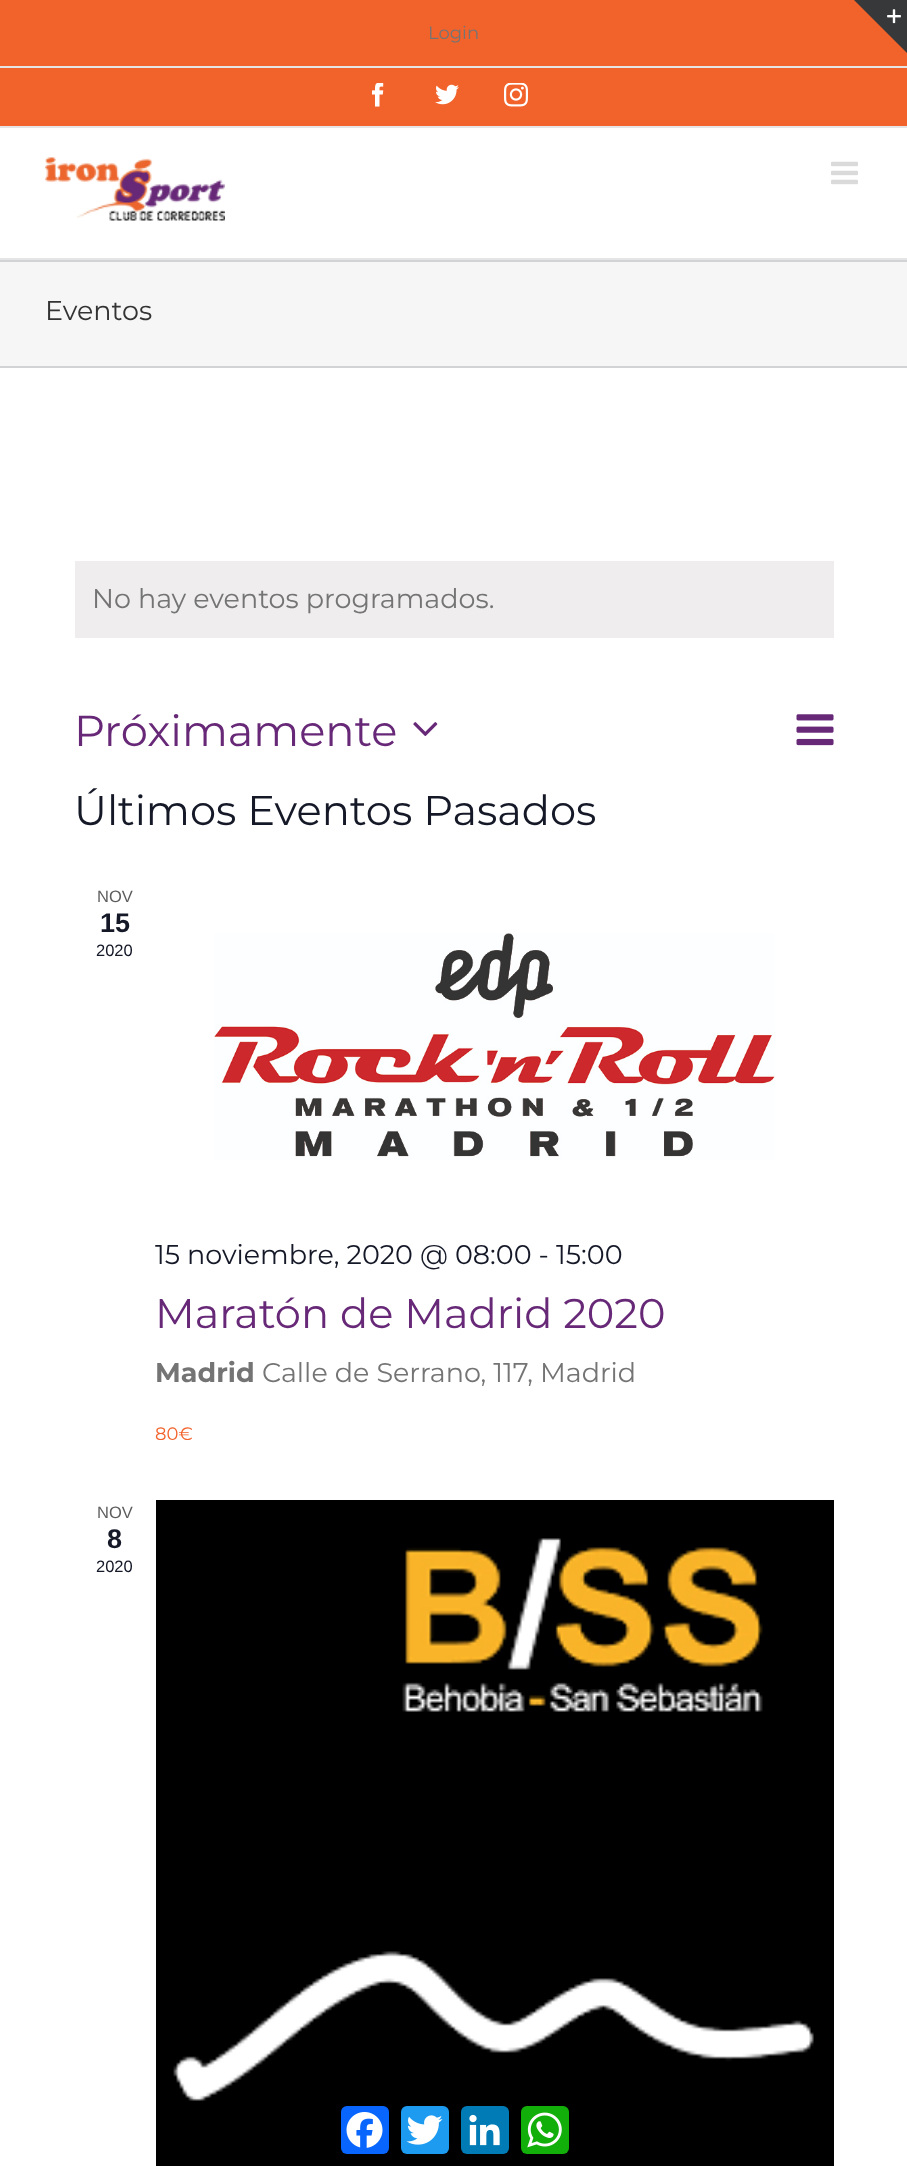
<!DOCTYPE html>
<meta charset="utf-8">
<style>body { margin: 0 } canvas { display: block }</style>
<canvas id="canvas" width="907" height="2166"></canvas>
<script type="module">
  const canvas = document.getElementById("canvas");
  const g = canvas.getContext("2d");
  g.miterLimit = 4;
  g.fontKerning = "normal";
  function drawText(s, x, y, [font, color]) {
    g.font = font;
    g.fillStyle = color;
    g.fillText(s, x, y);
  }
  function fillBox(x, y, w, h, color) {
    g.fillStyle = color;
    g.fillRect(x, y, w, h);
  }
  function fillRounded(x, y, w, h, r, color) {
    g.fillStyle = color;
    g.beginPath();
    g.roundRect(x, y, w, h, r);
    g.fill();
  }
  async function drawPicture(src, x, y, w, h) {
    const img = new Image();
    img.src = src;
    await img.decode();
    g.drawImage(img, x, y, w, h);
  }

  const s1 = ["18px Montserrat", "#747474"];
  const s2 = ["27px Montserrat", "#333333"];
  const s3 = ["27px Montserrat", "#747474"];
  const s4 = ["43.25px Montserrat", "#672877"];
  const s5 = ["41.6px Montserrat", "#141827"];
  const s6 = ["16.5px Liberation Sans", "#5D5D5D"];
  const s7 = ["bold 27px Liberation Sans", "#141827"];
  const s8 = ["16.5px Liberation Sans", "#141827"];
  const s9 = ["27px Montserrat", "#141827"];
  const s10 = ["41.6px Montserrat", "#672877"];
  const s11 = ["bold 27px Montserrat", "#747474"];
  const s12 = ["18px Montserrat", "#F2632B"];

  fillBox(0, 0, 907, 2166, "#FFFFFF");
  fillBox(0, 0, 907, 126, "#F2632B");
  fillBox(0, 126, 907, 2, "#E5E5E5");
  fillBox(0, 66, 907, 2, "#E5E5E5");
  drawText("Login", 428, 39, s1);
  await drawPicture("pic1.png", 372, 83, 12, 24);
  await drawPicture("pic2.png", 435, 84, 24, 21);
  await drawPicture("pic3.png", 504, 83, 24, 24);
  fillBox(0, 258, 907, 2, "#E5E5E5");
  await drawPicture("pic4.png", 45, 157, 180, 64);
  await drawPicture("pic5.png", 831, 161, 27, 24);
  g.fillStyle = "#363839";
  g.beginPath();
  g.moveTo(854, 0);
  g.lineTo(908, 0);
  g.lineTo(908, 54);
  g.closePath();
  g.fill();
  await drawPicture("pic6.png", 887, 9, 14, 15);
  fillBox(0, 262, 907, 104, "#F6F6F6");
  fillBox(0, 260, 907, 2, "#D2D3D4");
  fillBox(0, 366, 907, 2, "#D2D3D4");
  drawText("Eventos", 45, 320, s2);
  fillBox(75, 561, 759, 77, "#EFEDED");
  drawText("No hay eventos programados.", 92, 608, s3);
  drawText("Próximamente", 74, 746, s4);
  await drawPicture("pic7.png", 413, 722, 25, 14);
  await drawPicture("pic8.png", 796, 714, 38, 32);
  drawText("Últimos Eventos Pasados", 74, 825, s5);
  drawText("NOV", 97, 902, s6);
  drawText("15", 100, 932, s7);
  drawText("2020", 96, 956, s8);
  await drawPicture("pic9.png", 214, 933, 561, 227);
  drawText("15 noviembre, 2020 @ 08:00 - 15:00", 155, 1264, s9);
  drawText("Maratón de Madrid 2020", 155, 1328, s10);
  drawText("Madrid", 155, 1382, s11);
  drawText("Calle de Serrano, 117, Madrid", 262, 1382, s3);
  drawText("80€", 155, 1440, s12);
  drawText("NOV", 97, 1518, s6);
  drawText("8", 107, 1548, s7);
  drawText("2020", 96, 1572, s8);
  await drawPicture("pic10.png", 156, 1500, 678, 666);
  fillRounded(341, 2106, 48, 48, 6, "#0866FF");
  await drawPicture("pic11.png", 346, 2112, 37, 36);
  fillRounded(401, 2106, 48, 48, 6, "#1D9BF0");
  await drawPicture("pic12.png", 406, 2115, 37, 30);
  fillRounded(461, 2106, 48, 48, 6, "#007BB5");
  await drawPicture("pic13.png", 469, 2114, 31, 32);
  fillRounded(521, 2106, 48, 48, 6, "#12AF0A");
  await drawPicture("pic14.png", 527, 2112, 35, 36);
</script>
